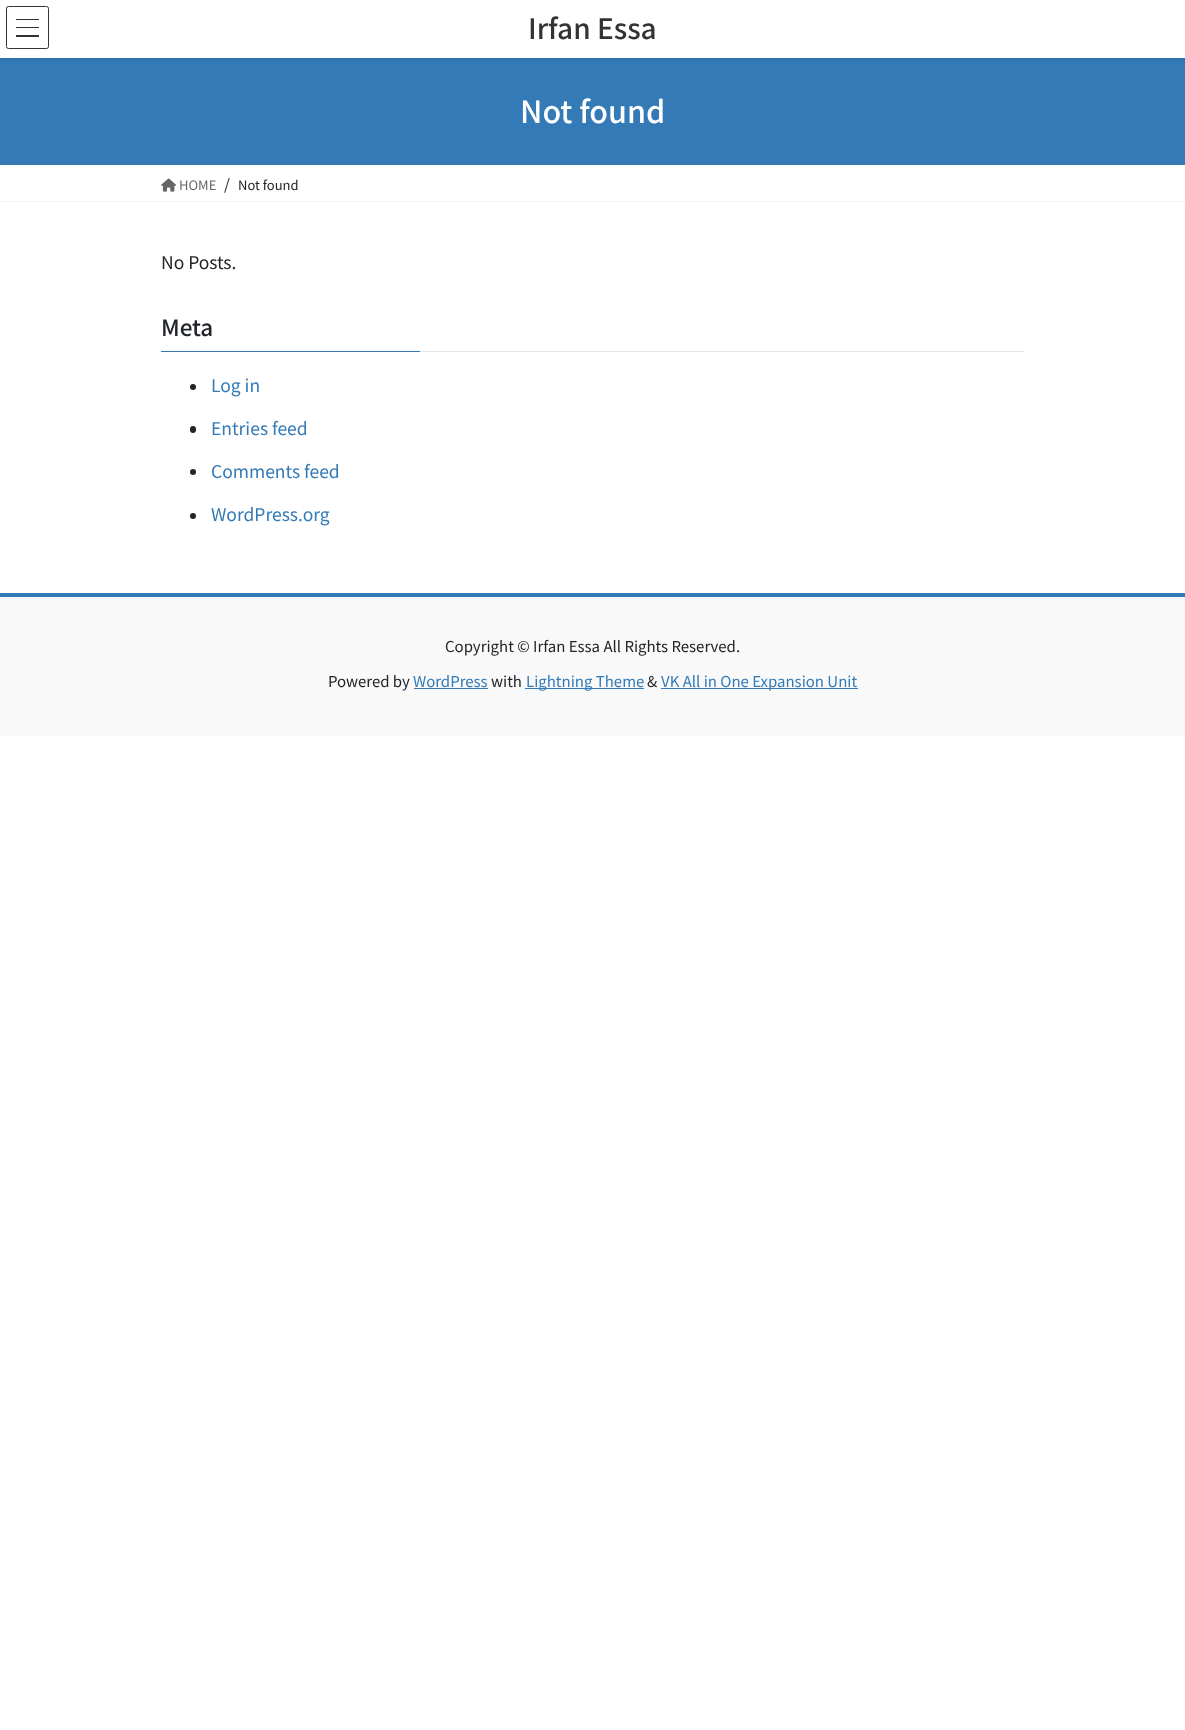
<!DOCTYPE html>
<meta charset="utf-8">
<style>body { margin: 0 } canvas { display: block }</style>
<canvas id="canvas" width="1185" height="1730"></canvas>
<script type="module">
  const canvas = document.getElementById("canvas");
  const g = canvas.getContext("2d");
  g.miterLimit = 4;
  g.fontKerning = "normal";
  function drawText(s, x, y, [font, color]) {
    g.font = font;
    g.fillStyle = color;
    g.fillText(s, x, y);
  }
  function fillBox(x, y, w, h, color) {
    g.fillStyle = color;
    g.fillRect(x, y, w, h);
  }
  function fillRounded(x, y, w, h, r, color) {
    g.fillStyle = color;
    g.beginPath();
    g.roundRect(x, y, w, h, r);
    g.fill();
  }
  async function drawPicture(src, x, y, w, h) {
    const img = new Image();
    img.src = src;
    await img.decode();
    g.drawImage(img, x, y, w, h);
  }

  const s1 = ["500 28px Noto Sans JP", "#333333"];
  const s2 = ["500 30.5px Noto Sans JP", "#FFFFFF"];
  const s3 = ["13px Noto Sans JP", "#666666"];
  const s4 = ["15px Noto Sans JP", "#212529"];
  const s5 = ["13px Noto Sans JP", "#212529"];
  const s6 = ["17.5px Noto Sans JP", "#212529"];
  const s7 = ["500 22.5px Noto Sans JP", "#212529"];
  const s8 = ["17.5px Noto Sans JP", "#337AB7"];
  const s9 = ["15px Noto Sans JP", "#337AB7"];

  fillBox(0, 0, 1185, 1730, "#FFFFFF");
  fillBox(0, 58, 1185, 107, "#337AB7");
  g.fillStyle = "rgba(0, 0, 0, 0.1)";
  g.filter = "blur(2px)";
  g.beginPath();
  g.rect(0, 1, 1185, 58);
  g.fill();
  g.filter = "none";
  fillBox(0, 0, 1185, 58, "#FFFFFF");
  fillBox(16, 19, 23, 1, "#333333");
  fillBox(16, 27, 23, 1, "#333333");
  fillBox(16, 35, 23, 2, "#333333");
  g.beginPath();
  g.roundRect(6.5, 6.5, 42, 42, 2);
  g.strokeStyle = "#333333";
  g.stroke();
  drawText("Irfan Essa", 528, 39, s1);
  drawText("Not found", 520, 123, s2);
  fillBox(0, 201, 1185, 1, "#F2F2F2");
  await drawPicture("pic1.png", 161, 178, 15, 14);
  drawText("HOME", 179, 190, s3);
  drawText("/", 224, 190, s4);
  drawText("Not found", 238, 190, s5);
  drawText("No Posts.", 161, 269, s6);
  fillBox(420, 351, 604, 1, "#E6E6E6");
  drawText("Meta", 161, 336, s7);
  fillBox(161, 351, 259, 1, "#337AB7");
  g.fillStyle = "#212529";
  g.beginPath();
  g.arc(193, 387, 3, 0, Math.PI * 2);
  g.fill();
  drawText("Log in", 211, 392, s8);
  fillRounded(190, 426, 6, 7, 3, "#212529");
  drawText("Entries feed", 211, 435, s8);
  g.fillStyle = "#212529";
  g.beginPath();
  g.arc(193, 472, 3, 0, Math.PI * 2);
  g.fill();
  drawText("Comments feed", 211, 478, s8);
  g.fillStyle = "#212529";
  g.beginPath();
  g.arc(193, 516, 3, 0, Math.PI * 2);
  g.fill();
  drawText("WordPress.org", 211, 521, s8);
  fillBox(0, 597, 1185, 139, "#F9F9F9");
  fillBox(0, 593, 1185, 4, "#337AB7");
  drawText("Copyright © Irfan Essa All Rights Reserved.", 445, 652, s4);
  drawText("Powered by", 328, 687, s4);
  drawText("WordPress", 413, 687, s9);
  fillBox(414, 688, 74, 1, "#337AB7");
  drawText("with", 491, 687, s4);
  fillBox(525, 688, 119, 1, "#337AB7");
  drawText("Lightning Theme", 526, 687, s9);
  drawText("&", 647, 687, s4);
  fillBox(661, 688, 197, 1, "#337AB7");
  drawText("VK All in One Expansion Unit", 661, 687, s9);
</script>
